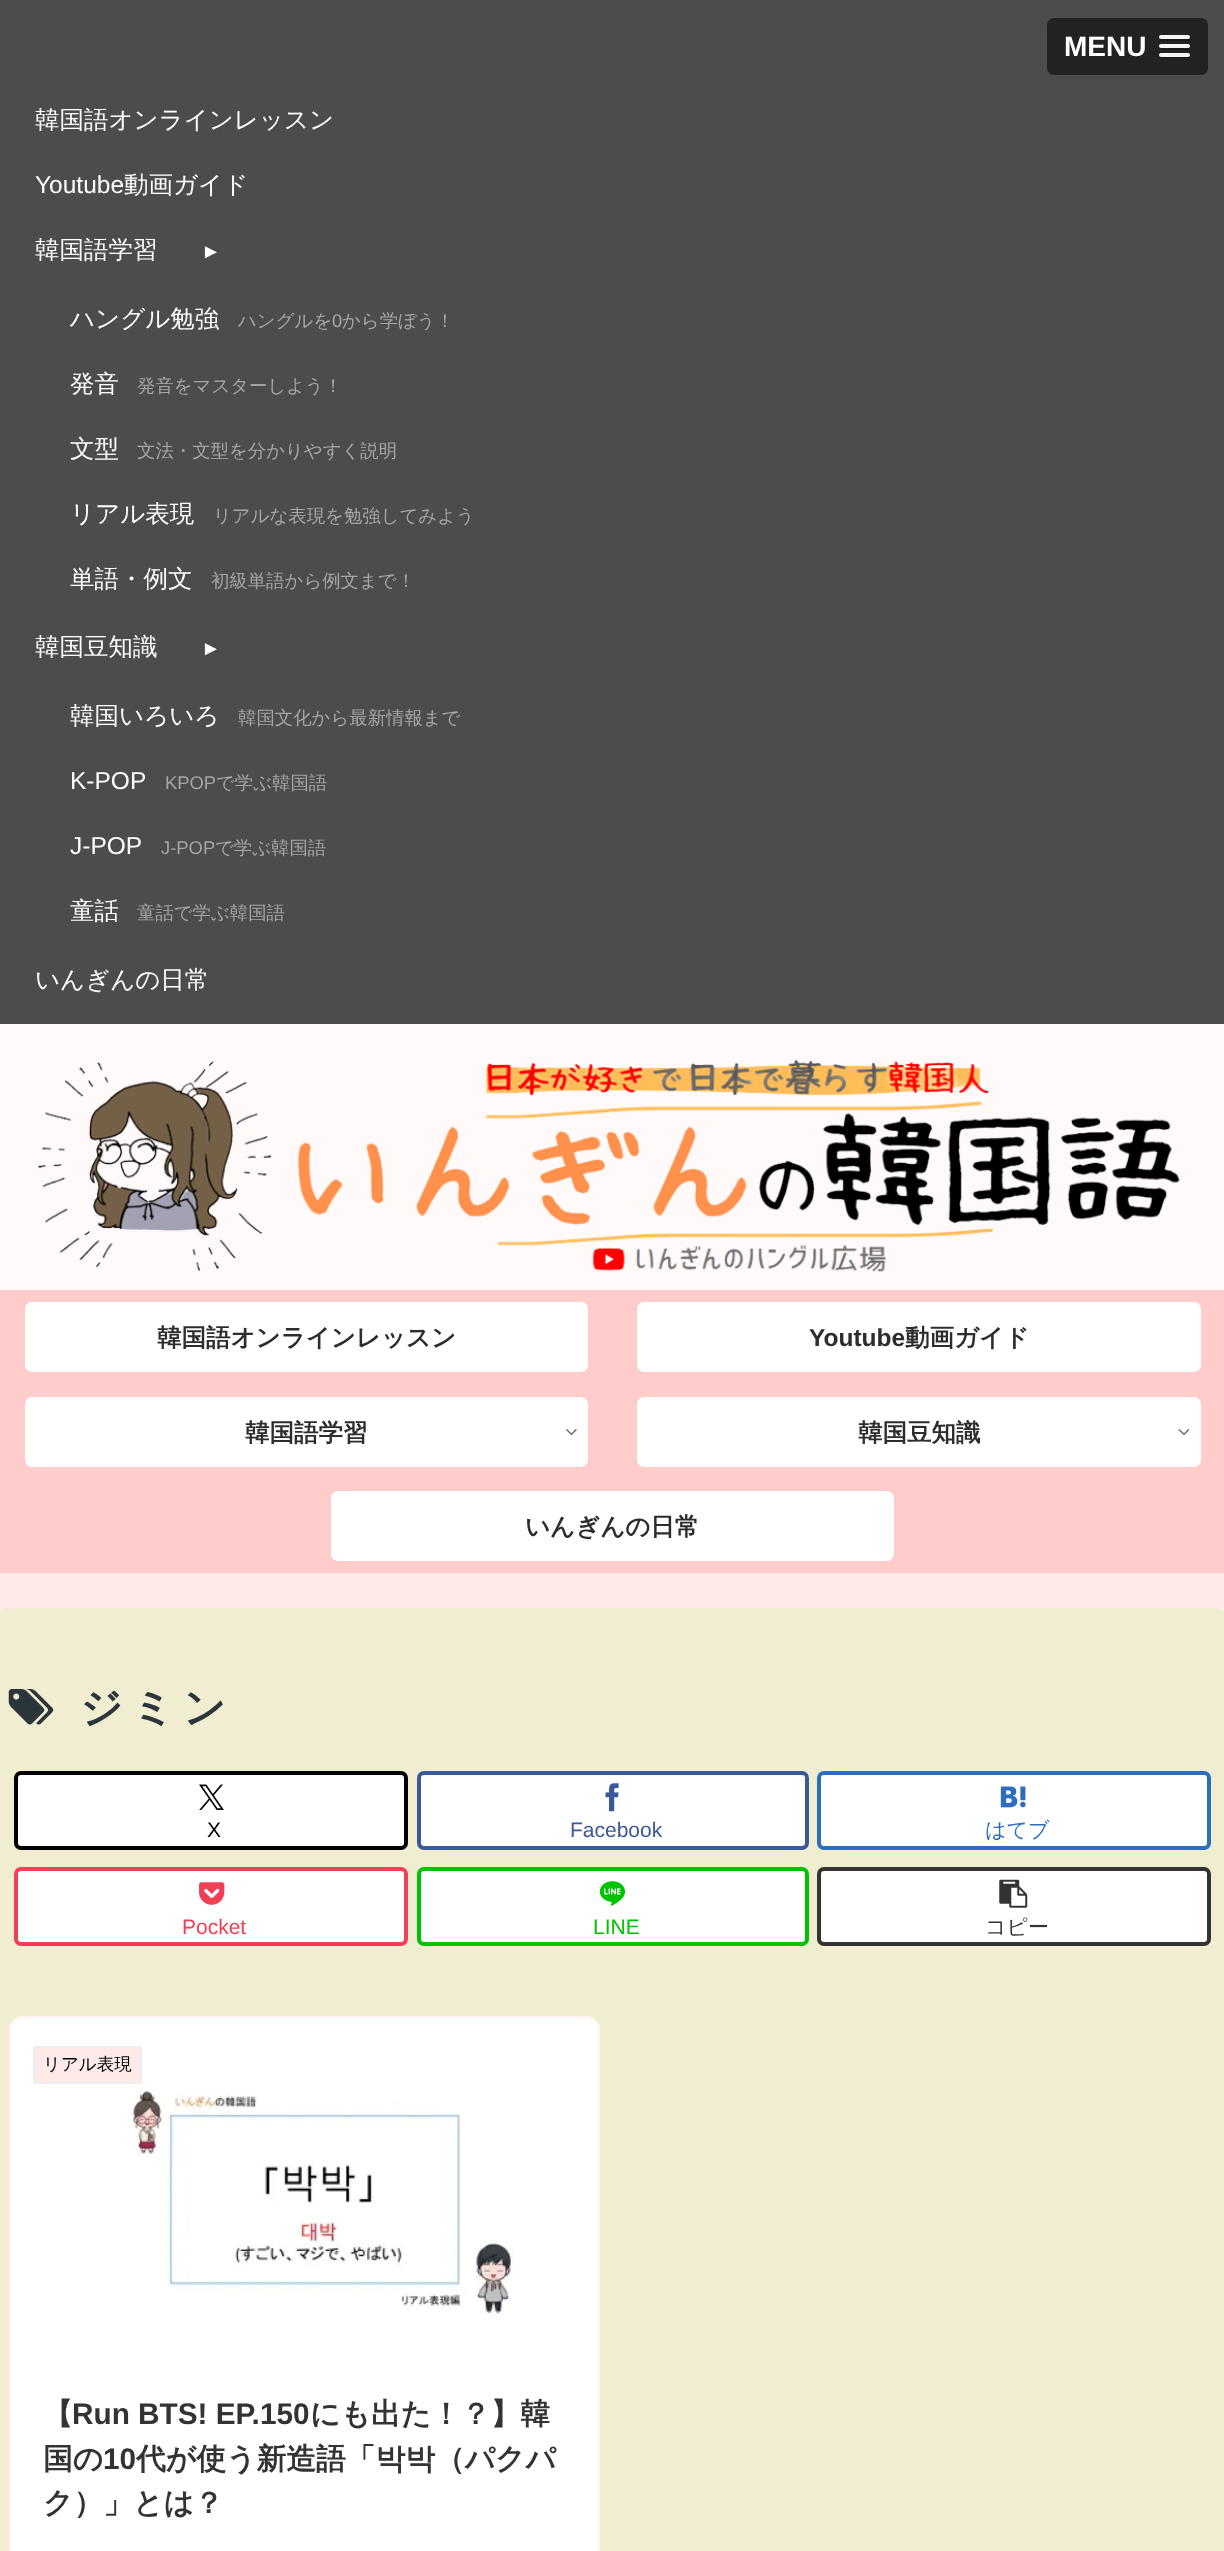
<!DOCTYPE html>
<meta charset="utf-8">
<style>body { margin: 0 } canvas { display: block }</style>
<canvas id="canvas" width="1224" height="2551"></canvas>
<script type="module">
  const canvas = document.getElementById("canvas");
  const g = canvas.getContext("2d");
  g.miterLimit = 4;
  g.fontKerning = "normal";
  function drawText(s, x, y, [font, color]) {
    g.font = font;
    g.fillStyle = color;
    g.fillText(s, x, y);
  }
  function fillBox(x, y, w, h, color) {
    g.fillStyle = color;
    g.fillRect(x, y, w, h);
  }
  function fillRounded(x, y, w, h, r, color) {
    g.fillStyle = color;
    g.beginPath();
    g.roundRect(x, y, w, h, r);
    g.fill();
  }
  async function drawPicture(src, x, y, w, h) {
    const img = new Image();
    img.src = src;
    await img.decode();
    g.drawImage(img, x, y, w, h);
  }

  const s1 = ["bold 28px Liberation Sans", "#FFFFFF"];
  const s2 = ["500 24.5px WenQuanYi Zen Hei", "#FFFFFF"];
  const s3 = ["24.5px Liberation Sans", "#FFFFFF"];
  const s4 = ["20px Liberation Sans", "#FFFFFF"];
  const s5 = ["500 18.4px WenQuanYi Zen Hei", "#A6A6A6"];
  const s6 = ["18.4px Liberation Sans", "#A6A6A6"];
  const s7 = ["bold 24.5px WenQuanYi Zen Hei", "#2D2D2D"];
  const s8 = ["bold 24.5px Liberation Sans", "#2D2D2D"];
  const s9 = ["bold 42px WenQuanYi Zen Hei", "#2A363B"];
  const s10 = ["21px Liberation Sans", "#000000"];
  const s11 = ["21px Liberation Sans", "#3B5998"];
  const s12 = ["500 21px WenQuanYi Zen Hei", "#2C6EBD"];
  const s13 = ["21px Liberation Sans", "#EF4056"];
  const s14 = ["21px Liberation Sans", "#00C300"];
  const s15 = ["500 21px WenQuanYi Zen Hei", "#333333"];
  const s16 = ["500 17.5px WenQuanYi Zen Hei", "#000000"];
  const s17 = ["bold 29.75px WenQuanYi Zen Hei", "#333333"];
  const s18 = ["bold 29.75px Liberation Sans", "#333333"];

  fillBox(0, 0, 1224, 2551, "#FFEAEA");
  fillBox(0, 0, 1224, 1024, "#4C4C4C");
  fillRounded(1047, 18, 161, 57, 7, "#222222");
  drawText("MENU", 1064, 56, s1);
  g.fillStyle = "#1A1A1A";
  g.beginPath();
  g.moveTo(1159, 38);
  g.bezierCurveTo(1157.5, 42, 1164.5, 41, 1165.5, 41);
  g.lineTo(1183.5, 41);
  g.bezierCurveTo(1184.5, 41, 1189.5, 42, 1190, 39.5);
  g.lineTo(1189.5, 38);
  g.lineTo(1188.5, 38.5);
  g.bezierCurveTo(1186, 39, 1160, 39, 1159, 38);
  g.closePath();
  g.fill();
  fillRounded(1159, 35, 31, 4, 2, "#F5F5F5");
  g.fillStyle = "#1A1A1A";
  g.beginPath();
  g.moveTo(1159.5, 47);
  g.bezierCurveTo(1157, 51, 1165, 50, 1165.5, 50);
  g.lineTo(1183.5, 50);
  g.bezierCurveTo(1184.5, 50, 1189.5, 51, 1190, 48.5);
  g.bezierCurveTo(1190, 48, 1190, 47, 1189.5, 46.5);
  g.lineTo(1188.5, 47);
  g.bezierCurveTo(1186, 47.5, 1160, 47.5, 1159.5, 47);
  g.closePath();
  g.fill();
  fillRounded(1159, 44, 31, 4, 2, "#F5F5F5");
  g.fillStyle = "#1A1A1A";
  g.beginPath();
  g.moveTo(1159, 55.5);
  g.bezierCurveTo(1158, 59, 1164.5, 58, 1165.5, 58);
  g.lineTo(1183.5, 58);
  g.bezierCurveTo(1184.5, 58, 1191.5, 59, 1190, 55);
  g.lineTo(1188.5, 56);
  g.lineTo(1160, 56);
  g.closePath();
  g.fill();
  fillRounded(1159, 53, 31, 4, 2, "#F5F5F5");
  drawText("韓国語オンラインレッスン", 35, 128, s2);
  drawText("Youtube", 35, 193, s3);
  drawText("動画ガイド", 124, 193, s2);
  drawText("韓国語学習", 35, 258, s2);
  drawText("►", 201, 258, s4);
  drawText("ハングル勉強", 70, 327, s2);
  drawText("ハングルを", 238, 327, s5);
  drawText("0", 332, 327, s6);
  drawText("から学ぼう！", 342, 327, s5);
  drawText("発音", 70, 392, s2);
  drawText("発音をマスターしよう！", 137, 392, s5);
  drawText("文型", 70, 457, s2);
  drawText("文法・文型を分かりやすく説明", 137, 457, s5);
  drawText("リアル表現", 70, 522, s2);
  drawText("リアルな表現を勉強してみよう", 213, 522, s5);
  drawText("単語・例文", 70, 587, s2);
  drawText("初級単語から例文まで！", 211, 587, s5);
  drawText("韓国豆知識", 35, 655, s2);
  drawText("►", 201, 655, s4);
  drawText("韓国いろいろ", 70, 724, s2);
  drawText("韓国文化から最新情報まで", 238, 724, s5);
  drawText("K-POP", 70, 789, s3);
  drawText("KPOP", 165, 789, s6);
  drawText("で学ぶ韓国語", 216, 789, s5);
  drawText("J-POP", 70, 854, s3);
  drawText("J-POP", 161, 854, s6);
  drawText("で学ぶ韓国語", 215, 854, s5);
  drawText("童話", 70, 919, s2);
  drawText("童話で学ぶ韓国語", 137, 919, s5);
  drawText("いんぎんの日常", 35, 988, s2);
  fillBox(0, 1024, 1224, 266, "#FFF9F9");
  await drawPicture("pic1.png", 38, 1059, 1142, 213);
  fillBox(0, 1290, 1224, 283, "#FFCCCC");
  fillRounded(25, 1302, 563, 70, 7, "#FFFFFF");
  drawText("韓国語オンラインレッスン", 157, 1346, s7);
  fillRounded(637, 1302, 564, 70, 7, "#FFFFFF");
  drawText("Youtube", 809, 1346, s8);
  drawText("動画ガイド", 905, 1346, s7);
  fillRounded(25, 1397, 563, 70, 7, "#FFFFFF");
  drawText("韓国語学習", 245, 1441, s7);
  await drawPicture("pic2.png", 566, 1429, 11, 7);
  fillRounded(637, 1397, 564, 70, 7, "#FFFFFF");
  drawText("韓国豆知識", 858, 1441, s7);
  await drawPicture("pic3.png", 1178, 1429, 12, 7);
  fillRounded(331, 1491, 563, 70, 7, "#FFFFFF");
  drawText("いんぎんの日常", 525, 1535, s7);
  fillRounded(0, 1608, 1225, 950, 7, "#F1EDD0");
  await drawPicture("pic4.png", 8, 1689, 46, 36);
  g.letterSpacing = "8.5px";
  drawText("ジミン", 80, 1722, s9);
  g.fillStyle = "#FFFFFF";
  g.beginPath();
  g.roundRect(16, 1773, 390, 75, 5);
  g.fill();
  g.strokeStyle = "#000000";
  g.lineWidth = 4;
  g.stroke();
  await drawPicture("pic5.png", 199, 1784, 25, 26);
  g.letterSpacing = "0px";
  drawText("X", 207, 1837, s10);
  g.fillStyle = "#FFFFFF";
  g.beginPath();
  g.roundRect(419, 1773, 388, 75, 5);
  g.fill();
  g.strokeStyle = "#3B5998";
  g.stroke();
  await drawPicture("pic6.png", 605, 1783, 14, 29);
  drawText("Facebook", 570, 1837, s11);
  g.fillStyle = "#FFFFFF";
  g.beginPath();
  g.roundRect(819, 1773, 390, 75, 5);
  g.fill();
  g.strokeStyle = "#2C6EBD";
  g.stroke();
  await drawPicture("pic7.png", 1000, 1786, 26, 22);
  drawText("はてブ", 985, 1837, s12);
  g.fillStyle = "#FFFFFF";
  g.beginPath();
  g.roundRect(16, 1869, 390, 75, 5);
  g.fill();
  g.strokeStyle = "#EF4056";
  g.stroke();
  await drawPicture("pic8.png", 199, 1882, 26, 23);
  drawText("Pocket", 182, 1934, s13);
  g.fillStyle = "#FFFFFF";
  g.beginPath();
  g.roundRect(419, 1869, 388, 75, 5);
  g.fill();
  g.strokeStyle = "#00C300";
  g.stroke();
  await drawPicture("pic9.png", 599, 1881, 27, 25);
  drawText("LINE", 593, 1934, s14);
  g.fillStyle = "#FFFFFF";
  g.beginPath();
  g.roundRect(819, 1869, 390, 75, 5);
  g.fill();
  g.strokeStyle = "#333333";
  g.stroke();
  await drawPicture("pic10.png", 999, 1879, 29, 29);
  drawText("コピー", 985, 1934, s15);
  fillRounded(9, 2016, 591, 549, 14, "#FFFFFF");
  g.beginPath();
  g.roundRect(10, 2017, 589, 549, 13);
  g.strokeStyle = "rgba(255, 234, 234, 0.5)";
  g.lineWidth = 2;
  g.stroke();
  g.fillStyle = "#FFEAEA";
  g.beginPath();
  g.rect(34, 2047, 107, 36);
  g.fill();
  g.strokeStyle = "#EEEEEE";
  g.stroke();
  drawText("リアル表現", 43, 2070, s16);
  await drawPicture("pic11.png", 132, 2089, 382, 228);
  drawText("【", 43, 2424, s17);
  drawText("Run BTS! EP.150", 72, 2424, s18);
  drawText("にも出た！？】韓", 310, 2424, s17);
  drawText("国の", 43, 2469, s17);
  drawText("10", 103, 2469, s18);
  drawText("代が使う新造語「박박（パクパ", 136, 2469, s17);
  drawText("ク）」とは？", 43, 2513, s17);
</script>
